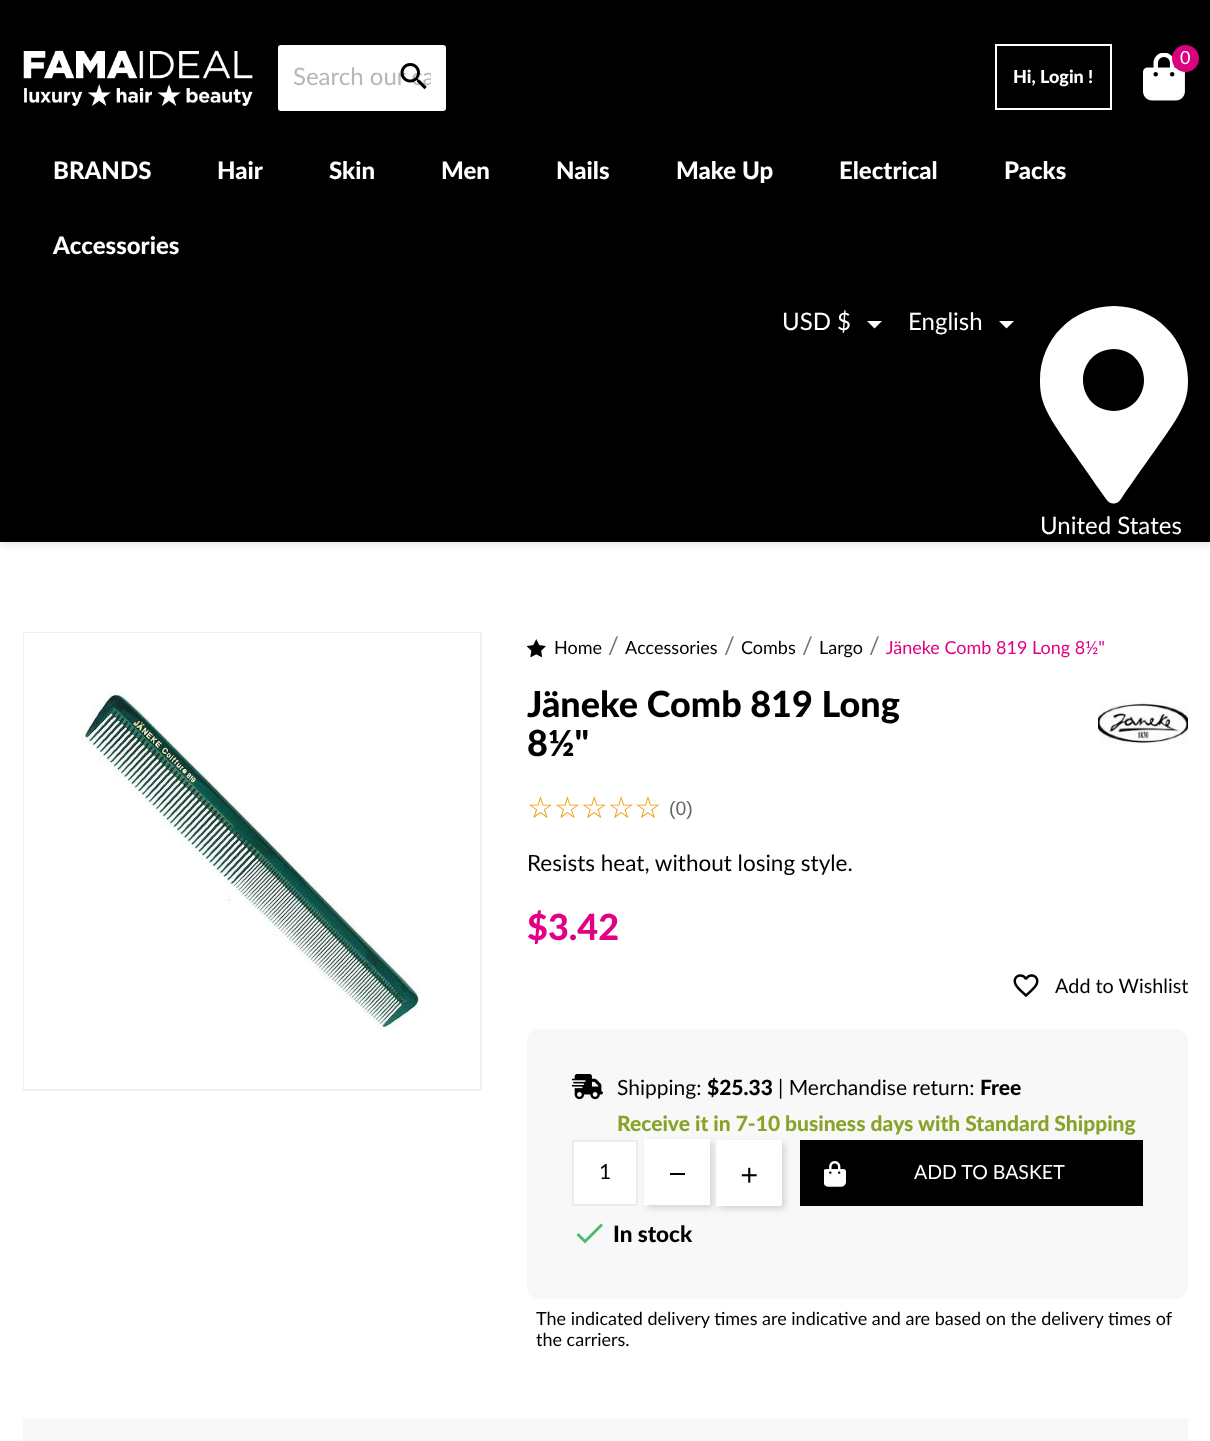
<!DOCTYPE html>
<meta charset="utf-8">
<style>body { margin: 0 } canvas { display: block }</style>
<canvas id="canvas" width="1210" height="1441"></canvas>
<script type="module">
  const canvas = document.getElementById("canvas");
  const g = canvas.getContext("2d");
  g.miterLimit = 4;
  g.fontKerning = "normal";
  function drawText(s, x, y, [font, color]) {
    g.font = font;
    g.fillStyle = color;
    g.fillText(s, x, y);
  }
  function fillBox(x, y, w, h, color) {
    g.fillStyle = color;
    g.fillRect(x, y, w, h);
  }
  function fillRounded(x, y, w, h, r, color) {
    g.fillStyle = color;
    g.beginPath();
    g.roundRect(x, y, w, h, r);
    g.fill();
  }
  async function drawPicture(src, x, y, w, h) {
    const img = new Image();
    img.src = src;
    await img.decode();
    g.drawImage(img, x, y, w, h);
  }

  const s1 = ["24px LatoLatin", "#B7B7B7"];
  const s2 = ["18px LatoLatin", "#FFFFFF"];
  const s3 = ["900 18px LatoLatin", "#FFFFFF"];
  const s4 = ["900 24px LatoLatin", "#FFFFFF"];
  const s5 = ["24px LatoLatin", "#FFFFFF"];
  const s6 = ["18px LatoLatin", "#000000"];
  const s7 = ["24px LatoLatin", "#7A7A7A"];
  const s8 = ["18px LatoLatin", "#E20185"];
  const s9 = ["900 36px LatoLatin", "#000000"];
  const s10 = ["30px DejaVu Sans", "#EE9A00"];
  const s11 = ["19.5px Liberation Sans", "#666666"];
  const s12 = ["22.5px LatoLatin", "#000000"];
  const s13 = ["900 36px LatoLatin", "#E20185"];
  const s14 = ["19.75px LatoLatin", "#000000"];
  const s15 = ["21px LatoLatin", "#000000"];
  const s16 = ["900 21px LatoLatin", "#000000"];
  const s17 = ["900 21px LatoLatin", "#89A329"];
  const s18 = ["19.5px LatoLatin", "#FFFFFF"];
  const s19 = ["900 22.5px LatoLatin", "#000000"];

  fillBox(0, 0, 1210, 1441, "#FFFFFF");
  g.fillStyle = "rgba(0, 0, 0, 0.11)";
  g.filter = "blur(4px)";
  g.beginPath();
  g.rect(0, 3, 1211, 542);
  g.fill();
  g.filter = "none";
  fillBox(0, 0, 1210, 542, "#000000");
  await drawPicture("pic1.png", 23, 50, 230, 56);
  fillRounded(278, 45, 168, 66, 3, "#FFFFFF");
  g.save();
  g.beginPath();
  g.rect(293, 65, 138, 28);
  g.clip();
  drawText("Search our ca", 293, 85, s1);
  g.restore();
  await drawPicture("pic2.png", 400, 63, 27, 27);
  await drawPicture("pic3.png", 1143, 53, 42, 48);
  g.fillStyle = "#DA0180";
  g.beginPath();
  g.arc(1185.5, 58.5, 13.5, 0, Math.PI * 2);
  g.fill();
  drawText("0", 1180, 64, s2);
  g.strokeStyle = "#FFFFFF";
  g.lineWidth = 2;
  g.strokeRect(996, 45, 115, 64);
  drawText("Hi, Login !", 1013, 83, s3);
  drawText("BRANDS", 53, 179, s4);
  drawText("Hair", 217, 179, s4);
  drawText("Skin", 329, 179, s4);
  drawText("Men", 441, 179, s4);
  drawText("Nails", 556, 179, s4);
  drawText("Make Up", 676, 179, s4);
  drawText("Electrical", 839, 179, s4);
  drawText("Packs", 1004, 179, s4);
  drawText("Accessories", 53, 254, s4);
  drawText("USD $", 782, 330, s5);
  g.beginPath();
  g.moveTo(867, 321);
  g.lineTo(882, 321);
  g.lineTo(874.5, 328.5);
  g.closePath();
  g.fill();
  drawText("English", 908, 330, s5);
  g.beginPath();
  g.moveTo(999, 321);
  g.lineTo(1014, 321);
  g.lineTo(1006.5, 328.5);
  g.closePath();
  g.fill();
  g.beginPath();
  g.moveTo(1106, 499);
  g.bezierCurveTo(1050, 418, 1040, 410, 1040, 380);
  g.bezierCurveTo(1040, 339, 1073, 306, 1114, 306);
  g.bezierCurveTo(1154, 306, 1188, 339, 1188, 380);
  g.bezierCurveTo(1188, 410, 1177, 418, 1121, 499);
  g.bezierCurveTo(1117, 505, 1110, 505, 1106, 499);
  g.closePath();
  g.moveTo(1114, 411);
  g.bezierCurveTo(1131, 411, 1144, 397, 1144, 380);
  g.bezierCurveTo(1144, 363, 1131, 349, 1114, 349);
  g.bezierCurveTo(1096, 349, 1083, 363, 1083, 380);
  g.bezierCurveTo(1083, 397, 1096, 411, 1114, 411);
  g.closePath();
  g.fill();
  drawText("United States", 1040, 534, s5);
  g.strokeStyle = "#F0F0F0";
  g.strokeRect(24, 633, 457, 457);
  fillBox(24, 633, 456, 456, "#FFFFFF");
  await drawPicture("pic4.png", 81, 690, 340, 340);
  await drawPicture("pic5.png", 527, 639, 19, 18);
  drawText("Home", 554, 654, s6);
  drawText("/", 608, 654, s7);
  drawText("Accessories", 625, 654, s6);
  drawText("/", 724, 654, s7);
  drawText("Combs", 741, 654, s6);
  drawText("/", 802, 654, s7);
  drawText("Largo", 819, 654, s6);
  drawText("/", 869, 654, s7);
  drawText("Jäneke Comb 819 Long 8½\"", 886, 654, s8);
  drawText("Jäneke Comb 819 Long", 527, 717, s9);
  drawText("8½\"", 527, 756, s9);
  await drawPicture("pic6.png", 1098, 702, 90, 42);
  drawText("☆☆☆☆☆", 527, 818, s10);
  drawText("(0)", 669, 815, s11);
  drawText("Resists heat, without losing style.", 527, 871, s12);
  drawText("$3.42", 527, 940, s13);
  await drawPicture("pic7.png", 1013, 974, 26, 23);
  drawText("Add to Wishlist", 1055, 993, s14);
  fillRounded(527, 1029, 661, 270, 12, "#F8F8F8");
  await drawPicture("pic8.png", 572, 1074, 31, 26);
  drawText("Shipping:", 617, 1095, s15);
  drawText("$25.33", 707, 1095, s16);
  drawText("| Merchandise return:", 778, 1095, s15);
  drawText("Free", 980, 1095, s16);
  drawText("Receive it in 7-10 business days with Standard Shipping", 617, 1131, s17);
  g.fillStyle = "rgba(0, 0, 0, 0.14)";
  g.filter = "blur(3px)";
  g.beginPath();
  g.rect(647, 1142, 66, 66);
  g.fill();
  g.filter = "none";
  g.fillStyle = "#FFFFFF";
  g.beginPath();
  g.rect(573, 1141, 64, 64);
  g.fill();
  g.strokeStyle = "#EDEDED";
  g.stroke();
  drawText("1", 599, 1179, s15);
  fillBox(644, 1139, 66, 66, "#FFFFFF");
  fillBox(670, 1173, 15, 2, "#000000");
  g.fillStyle = "rgba(0, 0, 0, 0.14)";
  g.filter = "blur(3px)";
  g.beginPath();
  g.rect(719, 1143, 66, 66);
  g.fill();
  g.filter = "none";
  fillBox(716, 1140, 66, 66, "#FFFFFF");
  await drawPicture("pic9.png", 741, 1167, 16, 16);
  fillBox(800, 1140, 343, 66, "#000000");
  await drawPicture("pic10.png", 824, 1161, 22, 26);
  drawText("ADD TO BASKET", 914, 1179, s18);
  g.fillStyle = "#4CBB6C";
  g.beginPath();
  g.moveTo(585, 1239.5);
  g.lineTo(601, 1223.5);
  g.lineTo(603, 1225.5);
  g.lineTo(585, 1243.5);
  g.lineTo(576.5, 1235);
  g.lineTo(578.5, 1233);
  g.closePath();
  g.fill();
  drawText("In stock", 613, 1242, s19);
  drawText("The indicated delivery times are indicative and are based on the delivery times of", 536, 1325, s6);
  drawText("the carriers.", 536, 1346, s6);
  fillBox(23, 1418, 1165, 23, "#F8F8F8");
</script>
